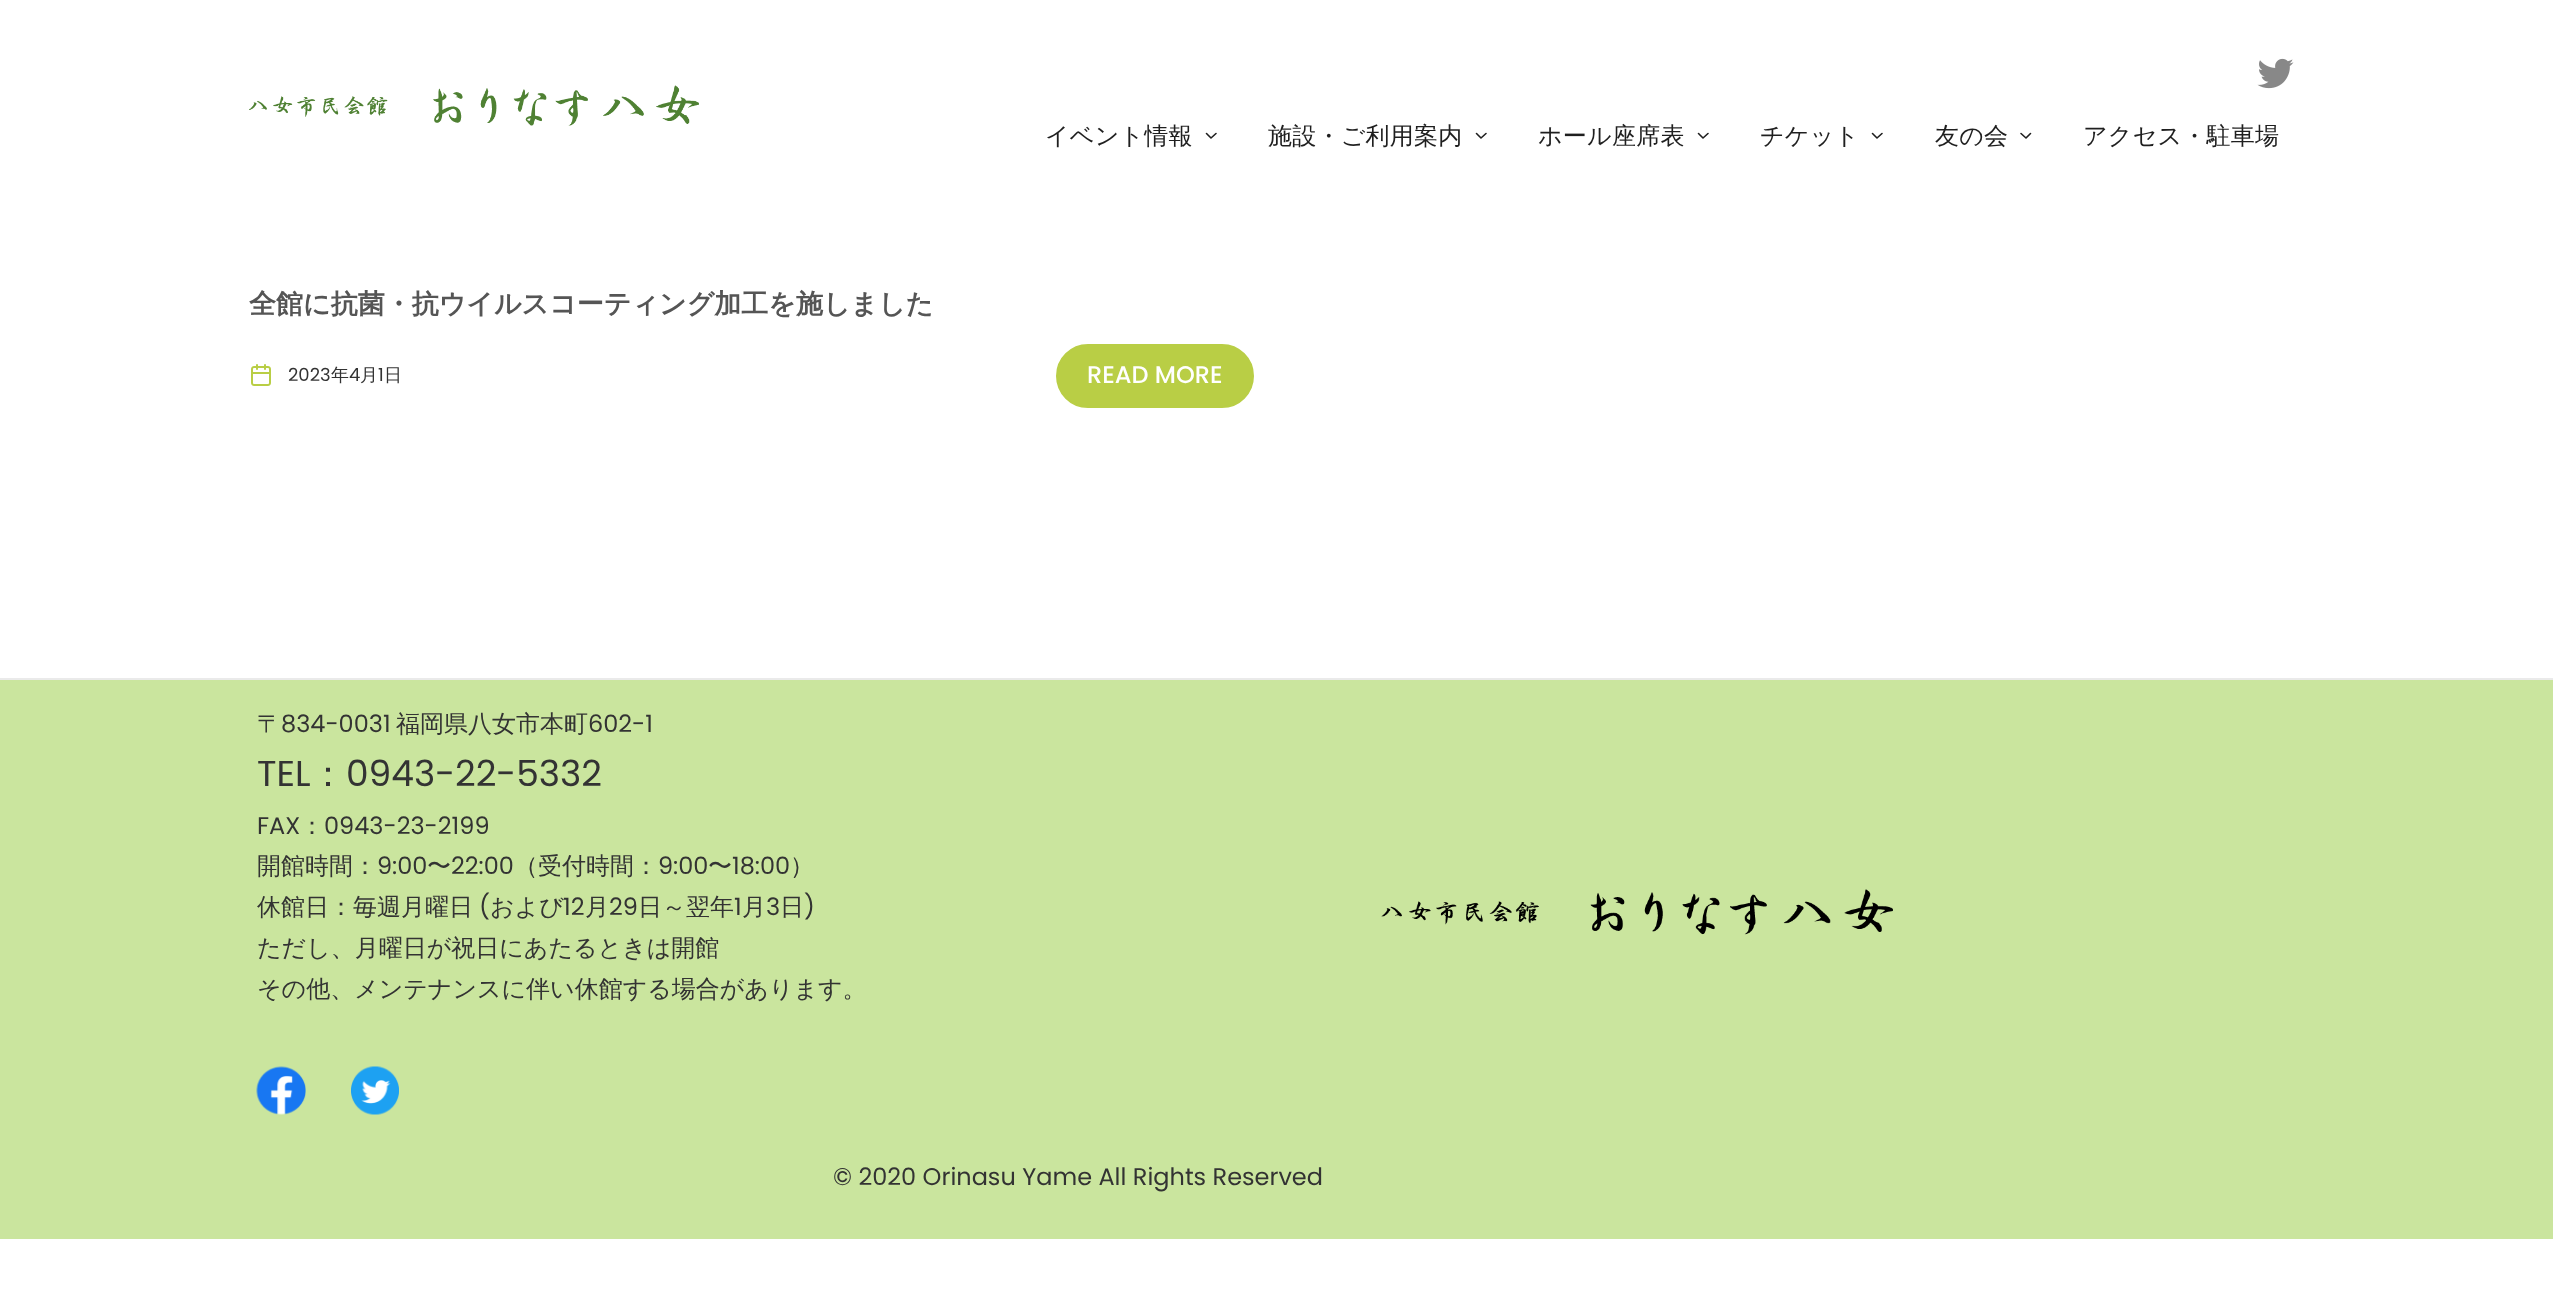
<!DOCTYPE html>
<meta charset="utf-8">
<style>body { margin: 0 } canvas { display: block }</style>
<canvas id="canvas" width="2553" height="1302"></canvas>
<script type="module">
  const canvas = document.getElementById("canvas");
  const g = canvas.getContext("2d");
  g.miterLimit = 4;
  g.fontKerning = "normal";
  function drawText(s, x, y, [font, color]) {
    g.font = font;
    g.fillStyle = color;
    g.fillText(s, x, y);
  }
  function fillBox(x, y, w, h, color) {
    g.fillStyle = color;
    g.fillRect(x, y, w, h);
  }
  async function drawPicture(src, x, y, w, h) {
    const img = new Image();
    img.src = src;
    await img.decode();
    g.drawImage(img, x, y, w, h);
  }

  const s1 = ["500 24px WenQuanYi Zen Hei", "#1F1F1F"];
  const s2 = ["bold 27px WenQuanYi Zen Hei", "#555555"];
  const s3 = ["18px Poppins", "#333333"];
  const s4 = ["500 18px WenQuanYi Zen Hei", "#333333"];
  const s5 = ["500 24px Poppins", "#FFFFFF"];
  const s6 = ["500 24px WenQuanYi Zen Hei", "#333333"];
  const s7 = ["24px Poppins", "#333333"];
  const s8 = ["36px Poppins", "#333333"];
  const s9 = ["500 36px WenQuanYi Zen Hei", "#333333"];

  fillBox(0, 0, 2553, 1302, "#FFFFFF");
  await drawPicture("pic1.png", 249, 85, 450, 41);
  await drawPicture("pic2.png", 2257, 58, 37, 31);
  g.letterSpacing = "0.25px";
  drawText("イベント情報", 1045, 144, s1);
  g.beginPath();
  g.moveTo(1206.5, 133.5);
  g.lineTo(1211, 138);
  g.lineTo(1216, 133.5);
  g.strokeStyle = "#1F1F1F";
  g.lineWidth = 1.6;
  g.lineCap = "round";
  g.lineJoin = "round";
  g.stroke();
  drawText("施設・ご利用案内", 1268, 144, s1);
  g.beginPath();
  g.moveTo(1476.5, 133.5);
  g.lineTo(1481, 138);
  g.lineTo(1486, 133.5);
  g.stroke();
  drawText("ホール座席表", 1538, 144, s1);
  g.beginPath();
  g.moveTo(1698.5, 133.5);
  g.lineTo(1703, 138);
  g.lineTo(1708, 133.5);
  g.stroke();
  drawText("チケット", 1760, 144, s1);
  g.beginPath();
  g.moveTo(1872.5, 133.5);
  g.lineTo(1877, 138);
  g.lineTo(1882, 133.5);
  g.stroke();
  drawText("友の会", 1935, 144, s1);
  g.beginPath();
  g.moveTo(2021, 133.5);
  g.lineTo(2026, 138);
  g.lineTo(2030.5, 133.5);
  g.stroke();
  drawText("アクセス・駐車場", 2083, 144, s1);
  g.letterSpacing = "0px";
  drawText("全館に抗菌・抗ウイルスコーティング加工を施しました", 249, 313, s2);
  await drawPicture("pic3.png", 251, 364, 20, 22);
  drawText("2023", 288, 381, s3);
  drawText("年", 331, 381, s4);
  drawText("4", 349, 381, s3);
  drawText("月", 360, 381, s4);
  drawText("1", 378, 381, s3);
  drawText("日", 384, 381, s4);
  g.fillStyle = "#B9CE45";
  g.beginPath();
  g.roundRect(1057, 345, 196, 62, 31);
  g.fill();
  g.strokeStyle = "#B9CE45";
  g.lineWidth = 2;
  g.lineJoin = "miter";
  g.stroke();
  drawText("READ MORE", 1087, 383, s5);
  fillBox(0, 680, 2553, 559, "#CAE59E");
  fillBox(0, 678, 2553, 2, "#EAEAEA");
  drawText("〒", 257, 732, s6);
  drawText("834-0031", 281, 732, s7);
  drawText("福岡県八女市本町", 396, 732, s6);
  drawText("602-1", 588, 732, s7);
  drawText("TEL", 257, 786, s8);
  drawText("：", 310, 786, s9);
  drawText("0943-22-5332", 346, 786, s8);
  drawText("FAX", 257, 834, s7);
  drawText("：", 300, 834, s6);
  drawText("0943-23-2199", 324, 834, s7);
  drawText("開館時間：", 257, 874, s6);
  drawText("9:00", 377, 874, s7);
  drawText("〜", 427, 874, s6);
  drawText("22:00", 451, 874, s7);
  drawText("（受付時間：", 514, 874, s6);
  drawText("9:00", 658, 874, s7);
  drawText("〜", 708, 874, s6);
  drawText("18:00", 732, 874, s7);
  drawText("）", 790, 874, s6);
  drawText("休館日：毎週月曜日", 257, 915, s6);
  drawText("(", 479, 915, s7);
  drawText("および", 490, 915, s6);
  drawText("12", 563, 915, s7);
  drawText("月", 585, 915, s6);
  drawText("29", 609, 915, s7);
  drawText("日～翌年", 638, 915, s6);
  drawText("1", 734, 915, s7);
  drawText("月", 742, 915, s6);
  drawText("3", 766, 915, s7);
  drawText("日", 780, 915, s6);
  drawText(")", 804, 915, s7);
  drawText("ただし、月曜日が祝日にあたるときは開館", 257, 956, s6);
  drawText("その他、メンテナンスに伴い休館する場合があります。", 257, 997, s6);
  await drawPicture("pic4.png", 256, 1066, 50, 49);
  await drawPicture("pic5.png", 351, 1066, 48, 49);
  await drawPicture("pic6.png", 1381, 889, 512, 46);
  drawText("©︎ 2020 Orinasu Yame All Rights Reserved", 833, 1185, s7);
</script>
